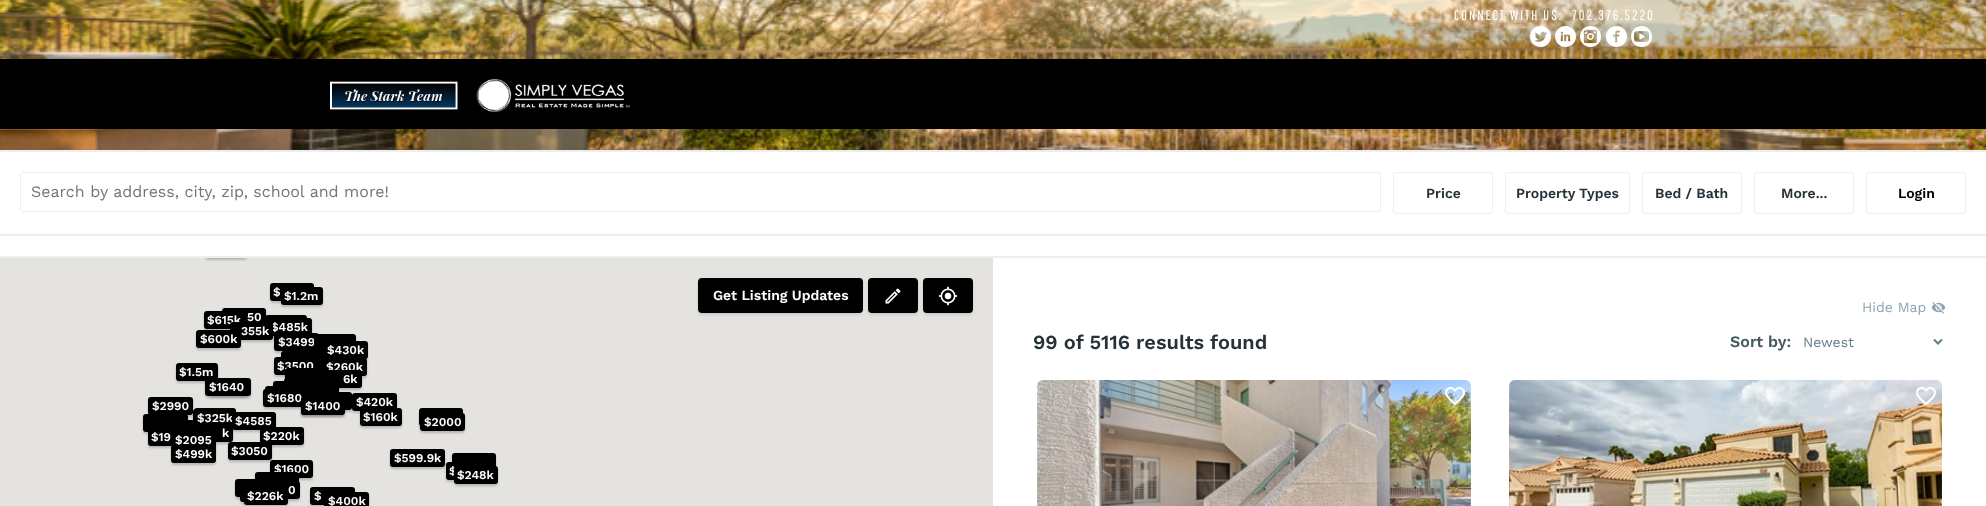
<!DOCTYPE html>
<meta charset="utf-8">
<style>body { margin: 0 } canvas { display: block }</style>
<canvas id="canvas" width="1986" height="506"></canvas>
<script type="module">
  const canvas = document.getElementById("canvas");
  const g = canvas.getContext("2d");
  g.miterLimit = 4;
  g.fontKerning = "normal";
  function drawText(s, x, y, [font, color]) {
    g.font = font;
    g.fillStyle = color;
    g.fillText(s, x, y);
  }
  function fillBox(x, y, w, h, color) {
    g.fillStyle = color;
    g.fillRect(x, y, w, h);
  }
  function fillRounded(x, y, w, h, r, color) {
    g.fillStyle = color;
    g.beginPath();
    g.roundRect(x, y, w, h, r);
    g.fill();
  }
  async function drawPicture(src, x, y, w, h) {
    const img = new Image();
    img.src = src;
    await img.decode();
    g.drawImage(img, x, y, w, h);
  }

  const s1 = ["14px Pathway Gothic One", "#FFFFFF"];
  const s2 = ["16px Work Sans", "#757575"];
  const s3 = ["600 14px Work Sans", "#263238"];
  const s4 = ["600 14px Work Sans", "#000000"];
  const s5 = ["600 12px Work Sans", "#FFFFFF"];
  const s6 = ["600 14px Work Sans", "#FFFFFF"];
  const s7 = ["14px Work Sans", "#90A4AE"];
  const s8 = ["600 20px Work Sans", "#263238"];
  const s9 = ["600 16px Work Sans", "#455A64"];
  const s10 = ["14px Work Sans", "#607D8B"];

  fillBox(0, 0, 1986, 506, "#FFFFFF");
  await drawPicture("pic1.png", 0, 0, 1986, 150);
  g.letterSpacing = "2px";
  drawText("CONNECT WITH US:", 1454, 20, s1);
  drawText("702.376.5220", 1572, 20, s1);
  await drawPicture("pic2.png", 1530, 26, 21, 21);
  await drawPicture("pic3.png", 1555, 26, 21, 21);
  await drawPicture("pic4.png", 1580, 26, 21, 21);
  await drawPicture("pic5.png", 1606, 26, 21, 21);
  await drawPicture("pic6.png", 1631, 26, 21, 21);
  fillBox(0, 59, 1986, 70, "#000000");
  await drawPicture("pic7.png", 330, 79, 300, 33);
  fillBox(0, 150, 1986, 2, "#ECEFF1");
  fillBox(0, 234, 1986, 2, "#ECEFF1");
  g.beginPath();
  g.roundRect(20.5, 172.5, 1360, 39, 2.5);
  g.strokeStyle = "#ECEFF1";
  g.stroke();
  g.letterSpacing = "0px";
  drawText("Search by address, city, zip, school and more!", 31, 197, s2);
  g.beginPath();
  g.roundRect(1393.5, 172.5, 99, 41, 2.5);
  g.stroke();
  drawText("Price", 1426, 198, s3);
  g.beginPath();
  g.roundRect(1505.5, 172.5, 124, 41, 2.5);
  g.stroke();
  drawText("Property Types", 1516, 198, s3);
  g.beginPath();
  g.roundRect(1642.5, 172.5, 99, 41, 2.5);
  g.stroke();
  drawText("Bed / Bath", 1655, 198, s3);
  g.beginPath();
  g.roundRect(1754.5, 172.5, 99, 41, 2.5);
  g.stroke();
  drawText("More...", 1781, 198, s3);
  g.beginPath();
  g.roundRect(1866.5, 172.5, 99, 41, 2.5);
  g.stroke();
  drawText("Login", 1898, 198, s4);
  fillBox(0, 256, 1986, 2, "#ECEFF1");
  fillBox(0, 258, 993, 248, "#E5E3DF");
  g.save();
  g.beginPath();
  g.rect(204, 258, 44, 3);
  g.clip();
  g.fillStyle = "rgba(0, 0, 0, 0.2)";
  g.filter = "blur(1px)";
  g.beginPath();
  g.roundRect(205, 242, 42, 18, 3);
  g.fill();
  g.filter = "none";
  g.restore();
  g.fillStyle = "rgba(0, 0, 0, 0.2)";
  g.filter = "blur(1px)";
  g.beginPath();
  g.roundRect(270, 285, 44, 18, 3);
  g.fill();
  g.filter = "none";
  fillRounded(270, 283, 44, 18, 3, "#000000");
  drawText("$", 273, 296, s5);
  g.fillStyle = "rgba(0, 0, 0, 0.2)";
  g.filter = "blur(1px)";
  g.beginPath();
  g.roundRect(281, 289, 42, 18, 3);
  g.fill();
  g.filter = "none";
  fillRounded(281, 287, 42, 18, 3, "#000000");
  drawText("$1.2m", 284, 300, s5);
  g.fillStyle = "rgba(0, 0, 0, 0.2)";
  g.filter = "blur(1px)";
  g.beginPath();
  g.roundRect(222, 310, 44, 18, 3);
  g.fill();
  g.filter = "none";
  fillRounded(222, 308, 44, 18, 3, "#000000");
  g.fillStyle = "rgba(0, 0, 0, 0.2)";
  g.filter = "blur(1px)";
  g.beginPath();
  g.roundRect(204, 313, 42, 18, 3);
  g.fill();
  g.filter = "none";
  fillRounded(204, 311, 42, 18, 3, "#000000");
  drawText("$615k", 207, 324, s5);
  drawText("50", 247, 321, s5);
  g.fillStyle = "rgba(0, 0, 0, 0.2)";
  g.filter = "blur(1px)";
  g.beginPath();
  g.roundRect(265, 317, 42, 18, 3);
  g.fill();
  g.filter = "none";
  fillRounded(265, 315, 42, 18, 3, "#000000");
  g.fillStyle = "rgba(0, 0, 0, 0.2)";
  g.filter = "blur(1px)";
  g.beginPath();
  g.roundRect(268, 320, 44, 18, 3);
  g.fill();
  g.filter = "none";
  fillRounded(268, 318, 44, 18, 3, "#000000");
  g.fillStyle = "rgba(0, 0, 0, 0.2)";
  g.filter = "blur(1px)";
  g.beginPath();
  g.roundRect(230, 324, 43, 18, 3);
  g.fill();
  g.filter = "none";
  drawText("$485k", 271, 331, s5);
  fillRounded(230, 322, 43, 18, 3, "#000000");
  drawText("355k", 241, 335, s5);
  g.fillStyle = "rgba(0, 0, 0, 0.2)";
  g.filter = "blur(1px)";
  g.beginPath();
  g.roundRect(196, 332, 45, 18, 3);
  g.fill();
  g.filter = "none";
  fillRounded(196, 330, 45, 18, 3, "#000000");
  drawText("$600k", 200, 343, s5);
  g.fillStyle = "rgba(0, 0, 0, 0.2)";
  g.filter = "blur(1px)";
  g.beginPath();
  g.roundRect(274, 335, 45, 18, 3);
  g.fill();
  g.filter = "none";
  fillRounded(274, 333, 45, 18, 3, "#000000");
  drawText("$3499", 278, 346, s5);
  g.fillStyle = "rgba(0, 0, 0, 0.2)";
  g.filter = "blur(1px)";
  g.beginPath();
  g.roundRect(314, 336, 42, 18, 3);
  g.fill();
  g.filter = "none";
  fillRounded(314, 334, 42, 18, 3, "#000000");
  g.fillStyle = "rgba(0, 0, 0, 0.2)";
  g.filter = "blur(1px)";
  g.beginPath();
  g.roundRect(323, 343, 45, 18, 3);
  g.fill();
  g.filter = "none";
  fillRounded(323, 341, 45, 18, 3, "#000000");
  g.fillStyle = "rgba(0, 0, 0, 0.2)";
  g.filter = "blur(1px)";
  g.beginPath();
  g.roundRect(281, 353, 44, 18, 3);
  g.fill();
  g.filter = "none";
  fillRounded(281, 351, 44, 18, 3, "#000000");
  drawText("$430k", 327, 354, s5);
  g.fillStyle = "rgba(0, 0, 0, 0.2)";
  g.filter = "blur(1px)";
  g.beginPath();
  g.roundRect(274, 359, 44, 18, 3);
  g.fill();
  g.filter = "none";
  fillRounded(274, 357, 44, 18, 3, "#000000");
  drawText("$3500", 277, 370, s5);
  g.fillStyle = "rgba(0, 0, 0, 0.2)";
  g.filter = "blur(1px)";
  g.beginPath();
  g.roundRect(323, 360, 44, 18, 3);
  g.fill();
  g.filter = "none";
  fillRounded(323, 358, 44, 18, 3, "#000000");
  drawText("$260k", 326, 371, s5);
  g.fillStyle = "rgba(0, 0, 0, 0.2)";
  g.filter = "blur(1px)";
  g.beginPath();
  g.roundRect(176, 365, 42, 18, 3);
  g.fill();
  g.filter = "none";
  fillRounded(176, 363, 42, 18, 3, "#000000");
  drawText("$1.5m", 179, 376, s5);
  g.fillStyle = "rgba(0, 0, 0, 0.2)";
  g.filter = "blur(1px)";
  g.beginPath();
  g.roundRect(285, 370, 44, 18, 3);
  g.fill();
  g.filter = "none";
  fillRounded(285, 368, 44, 18, 3, "#000000");
  g.fillStyle = "rgba(0, 0, 0, 0.2)";
  g.filter = "blur(1px)";
  g.beginPath();
  g.roundRect(209, 380, 42, 18, 3);
  g.fill();
  g.filter = "none";
  fillRounded(209, 378, 42, 18, 3, "#000000");
  g.fillStyle = "rgba(0, 0, 0, 0.2)";
  g.filter = "blur(1px)";
  g.beginPath();
  g.roundRect(318, 372, 44, 18, 3);
  g.fill();
  g.filter = "none";
  fillRounded(318, 370, 44, 18, 3, "#000000");
  fillRounded(284, 378, 44, 18, 3, "#000000");
  g.fillStyle = "rgba(0, 0, 0, 0.2)";
  g.filter = "blur(1px)";
  g.beginPath();
  g.roundRect(294, 380, 45, 18, 3);
  g.fill();
  g.filter = "none";
  fillRounded(294, 378, 45, 18, 3, "#000000");
  drawText("6k", 343, 383, s5);
  g.fillStyle = "rgba(0, 0, 0, 0.2)";
  g.filter = "blur(1px)";
  g.beginPath();
  g.roundRect(273, 383, 42, 18, 3);
  g.fill();
  g.filter = "none";
  fillRounded(273, 381, 42, 18, 3, "#000000");
  g.fillStyle = "rgba(0, 0, 0, 0.2)";
  g.filter = "blur(1px)";
  g.beginPath();
  g.roundRect(205, 380, 43, 18, 3);
  g.fill();
  g.filter = "none";
  fillRounded(205, 378, 43, 18, 3, "#000000");
  drawText("$1640", 209, 391, s5);
  g.fillStyle = "rgba(0, 0, 0, 0.2)";
  g.filter = "blur(1px)";
  g.beginPath();
  g.roundRect(294, 384, 42, 18, 3);
  g.fill();
  g.filter = "none";
  fillRounded(294, 382, 42, 18, 3, "#000000");
  g.fillStyle = "rgba(0, 0, 0, 0.2)";
  g.filter = "blur(1px)";
  g.beginPath();
  g.roundRect(275, 388, 44, 18, 3);
  g.fill();
  g.filter = "none";
  fillRounded(275, 386, 44, 18, 3, "#000000");
  g.fillStyle = "rgba(0, 0, 0, 0.2)";
  g.filter = "blur(1px)";
  g.beginPath();
  g.roundRect(265, 388, 42, 18, 3);
  g.fill();
  g.filter = "none";
  fillRounded(265, 386, 42, 18, 3, "#000000");
  g.fillStyle = "rgba(0, 0, 0, 0.2)";
  g.filter = "blur(1px)";
  g.beginPath();
  g.roundRect(310, 394, 42, 18, 3);
  g.fill();
  g.filter = "none";
  fillRounded(310, 392, 42, 18, 3, "#000000");
  g.fillStyle = "rgba(0, 0, 0, 0.2)";
  g.filter = "blur(1px)";
  g.beginPath();
  g.roundRect(148, 399, 45, 18, 3);
  g.fill();
  g.filter = "none";
  fillRounded(148, 397, 45, 18, 3, "#000000");
  drawText("$2990", 152, 410, s5);
  g.fillStyle = "rgba(0, 0, 0, 0.2)";
  g.filter = "blur(1px)";
  g.beginPath();
  g.roundRect(263, 391, 43, 18, 3);
  g.fill();
  g.filter = "none";
  fillRounded(263, 389, 43, 18, 3, "#000000");
  drawText("$1680", 267, 402, s5);
  g.fillStyle = "rgba(0, 0, 0, 0.2)";
  g.filter = "blur(1px)";
  g.beginPath();
  g.roundRect(301, 399, 44, 18, 3);
  g.fill();
  g.filter = "none";
  fillRounded(301, 397, 44, 18, 3, "#000000");
  g.fillStyle = "rgba(0, 0, 0, 0.2)";
  g.filter = "blur(1px)";
  g.beginPath();
  g.roundRect(352, 395, 45, 18, 3);
  g.fill();
  g.filter = "none";
  fillRounded(352, 393, 45, 18, 3, "#000000");
  drawText("$420k", 356, 406, s5);
  g.fillStyle = "rgba(0, 0, 0, 0.2)";
  g.filter = "blur(1px)";
  g.beginPath();
  g.roundRect(143, 416, 45, 18, 3);
  g.fill();
  g.filter = "none";
  fillRounded(143, 414, 45, 18, 3, "#000000");
  g.fillStyle = "rgba(0, 0, 0, 0.2)";
  g.filter = "blur(1px)";
  g.beginPath();
  g.roundRect(194, 410, 42, 18, 3);
  g.fill();
  g.filter = "none";
  fillRounded(194, 408, 42, 18, 3, "#000000");
  g.fillStyle = "rgba(0, 0, 0, 0.2)";
  g.filter = "blur(1px)";
  g.beginPath();
  g.roundRect(301, 399, 43, 18, 3);
  g.fill();
  g.filter = "none";
  fillRounded(301, 397, 43, 18, 3, "#000000");
  drawText("$1400", 305, 410, s5);
  g.fillStyle = "rgba(0, 0, 0, 0.2)";
  g.filter = "blur(1px)";
  g.beginPath();
  g.roundRect(360, 410, 42, 18, 3);
  g.fill();
  g.filter = "none";
  fillRounded(360, 408, 42, 18, 3, "#000000");
  drawText("$160k", 363, 421, s5);
  g.fillStyle = "rgba(0, 0, 0, 0.2)";
  g.filter = "blur(1px)";
  g.beginPath();
  g.roundRect(419, 410, 44, 18, 3);
  g.fill();
  g.filter = "none";
  fillRounded(419, 408, 44, 18, 3, "#000000");
  g.fillStyle = "rgba(0, 0, 0, 0.2)";
  g.filter = "blur(1px)";
  g.beginPath();
  g.roundRect(193, 411, 43, 18, 3);
  g.fill();
  g.filter = "none";
  fillRounded(193, 409, 43, 18, 3, "#000000");
  g.fillStyle = "rgba(0, 0, 0, 0.2)";
  g.filter = "blur(1px)";
  g.beginPath();
  g.roundRect(153, 422, 44, 18, 3);
  g.fill();
  g.filter = "none";
  drawText("$325k", 197, 422, s5);
  fillRounded(153, 420, 44, 18, 3, "#000000");
  g.fillStyle = "rgba(0, 0, 0, 0.2)";
  g.filter = "blur(1px)";
  g.beginPath();
  g.roundRect(232, 414, 44, 18, 3);
  g.fill();
  g.filter = "none";
  fillRounded(232, 412, 44, 18, 3, "#000000");
  drawText("$4585", 235, 425, s5);
  g.fillStyle = "rgba(0, 0, 0, 0.2)";
  g.filter = "blur(1px)";
  g.beginPath();
  g.roundRect(420, 415, 45, 18, 3);
  g.fill();
  g.filter = "none";
  fillRounded(420, 413, 45, 18, 3, "#000000");
  drawText("$2000", 424, 426, s5);
  g.fillStyle = "rgba(0, 0, 0, 0.2)";
  g.filter = "blur(1px)";
  g.beginPath();
  g.roundRect(189, 426, 44, 18, 3);
  g.fill();
  g.filter = "none";
  fillRounded(189, 424, 44, 18, 3, "#000000");
  g.fillStyle = "rgba(0, 0, 0, 0.2)";
  g.filter = "blur(1px)";
  g.beginPath();
  g.roundRect(153, 427, 44, 18, 3);
  g.fill();
  g.filter = "none";
  fillRounded(153, 425, 44, 18, 3, "#000000");
  drawText("k", 222, 437, s5);
  g.fillStyle = "rgba(0, 0, 0, 0.2)";
  g.filter = "blur(1px)";
  g.beginPath();
  g.roundRect(260, 429, 44, 18, 3);
  g.fill();
  g.filter = "none";
  fillRounded(260, 427, 44, 18, 3, "#000000");
  drawText("$220k", 263, 440, s5);
  g.fillStyle = "rgba(0, 0, 0, 0.2)";
  g.filter = "blur(1px)";
  g.beginPath();
  g.roundRect(148, 430, 42, 18, 3);
  g.fill();
  g.filter = "none";
  fillRounded(148, 428, 42, 18, 3, "#000000");
  drawText("$19", 151, 441, s5);
  g.fillStyle = "rgba(0, 0, 0, 0.2)";
  g.filter = "blur(1px)";
  g.beginPath();
  g.roundRect(172, 433, 44, 18, 3);
  g.fill();
  g.filter = "none";
  fillRounded(172, 431, 44, 18, 3, "#000000");
  drawText("$2095", 175, 444, s5);
  g.fillStyle = "rgba(0, 0, 0, 0.2)";
  g.filter = "blur(1px)";
  g.beginPath();
  g.roundRect(171, 447, 45, 18, 3);
  g.fill();
  g.filter = "none";
  fillRounded(171, 445, 45, 18, 3, "#000000");
  drawText("$499k", 175, 458, s5);
  g.fillStyle = "rgba(0, 0, 0, 0.2)";
  g.filter = "blur(1px)";
  g.beginPath();
  g.roundRect(228, 444, 44, 18, 3);
  g.fill();
  g.filter = "none";
  fillRounded(228, 442, 44, 18, 3, "#000000");
  drawText("$3050", 231, 455, s5);
  g.fillStyle = "rgba(0, 0, 0, 0.2)";
  g.filter = "blur(1px)";
  g.beginPath();
  g.roundRect(390, 451, 55, 18, 3);
  g.fill();
  g.filter = "none";
  fillRounded(390, 449, 55, 18, 3, "#000000");
  drawText("$599.9k", 394, 462, s5);
  g.fillStyle = "rgba(0, 0, 0, 0.2)";
  g.filter = "blur(1px)";
  g.beginPath();
  g.roundRect(452, 455, 44, 18, 3);
  g.fill();
  g.filter = "none";
  fillRounded(452, 453, 44, 18, 3, "#000000");
  g.fillStyle = "rgba(0, 0, 0, 0.2)";
  g.filter = "blur(1px)";
  g.beginPath();
  g.roundRect(270, 462, 43, 18, 3);
  g.fill();
  g.filter = "none";
  fillRounded(270, 460, 43, 18, 3, "#000000");
  drawText("$1600", 274, 473, s5);
  g.fillStyle = "rgba(0, 0, 0, 0.2)";
  g.filter = "blur(1px)";
  g.beginPath();
  g.roundRect(446, 464, 44, 18, 3);
  g.fill();
  g.filter = "none";
  fillRounded(446, 462, 44, 18, 3, "#000000");
  drawText("$", 449, 475, s5);
  g.fillStyle = "rgba(0, 0, 0, 0.2)";
  g.filter = "blur(1px)";
  g.beginPath();
  g.roundRect(255, 474, 44, 18, 3);
  g.fill();
  g.filter = "none";
  fillRounded(255, 472, 44, 18, 3, "#000000");
  g.fillStyle = "rgba(0, 0, 0, 0.2)";
  g.filter = "blur(1px)";
  g.beginPath();
  g.roundRect(454, 468, 44, 18, 3);
  g.fill();
  g.filter = "none";
  fillRounded(454, 466, 44, 18, 3, "#000000");
  drawText("$248k", 457, 479, s5);
  g.fillStyle = "rgba(0, 0, 0, 0.2)";
  g.filter = "blur(1px)";
  g.beginPath();
  g.roundRect(235, 481, 42, 18, 3);
  g.fill();
  g.filter = "none";
  fillRounded(235, 479, 42, 18, 3, "#000000");
  g.fillStyle = "rgba(0, 0, 0, 0.2)";
  g.filter = "blur(1px)";
  g.beginPath();
  g.roundRect(257, 483, 43, 18, 3);
  g.fill();
  g.filter = "none";
  fillRounded(257, 481, 43, 18, 3, "#000000");
  g.fillStyle = "rgba(0, 0, 0, 0.2)";
  g.filter = "blur(1px)";
  g.beginPath();
  g.roundRect(240, 486, 44, 18, 3);
  g.fill();
  g.filter = "none";
  fillRounded(240, 484, 44, 18, 3, "#000000");
  drawText("0", 288, 494, s5);
  g.fillStyle = "rgba(0, 0, 0, 0.2)";
  g.filter = "blur(1px)";
  g.beginPath();
  g.roundRect(244, 489, 44, 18, 3);
  g.fill();
  g.filter = "none";
  fillRounded(244, 487, 44, 18, 3, "#000000");
  drawText("$226k", 247, 500, s5);
  g.fillStyle = "rgba(0, 0, 0, 0.2)";
  g.filter = "blur(1px)";
  g.beginPath();
  g.roundRect(310, 489, 45, 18, 3);
  g.fill();
  g.filter = "none";
  fillRounded(310, 487, 45, 18, 3, "#000000");
  drawText("$", 314, 500, s5);
  g.fillStyle = "rgba(0, 0, 0, 0.2)";
  g.filter = "blur(1px)";
  g.beginPath();
  g.roundRect(324, 494, 45, 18, 3);
  g.fill();
  g.filter = "none";
  fillRounded(324, 492, 45, 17, 3, "#000000");
  drawText("$400k", 328, 505, s5);
  g.fillStyle = "rgba(0, 0, 0, 0.1)";
  g.filter = "blur(1.5px)";
  g.beginPath();
  g.roundRect(698, 280, 165, 35, 4);
  g.fill();
  g.filter = "none";
  fillRounded(698, 278, 165, 35, 4, "#000000");
  drawText("Get Listing Updates", 713, 300, s6);
  g.fillStyle = "rgba(0, 0, 0, 0.1)";
  g.filter = "blur(1.5px)";
  g.beginPath();
  g.roundRect(868, 280, 50, 35, 4);
  g.fill();
  g.filter = "none";
  fillRounded(868, 278, 50, 35, 4, "#000000");
  await drawPicture("pic8.png", 885, 288, 16, 16);
  g.fillStyle = "rgba(0, 0, 0, 0.1)";
  g.filter = "blur(1.5px)";
  g.beginPath();
  g.roundRect(923, 280, 50, 35, 4);
  g.fill();
  g.filter = "none";
  fillRounded(923, 278, 50, 35, 4, "#000000");
  await drawPicture("pic9.png", 938, 286, 20, 20);
  drawText("Hide Map", 1862, 312, s7);
  await drawPicture("pic10.png", 1931, 302, 15, 12);
  drawText("99 of 5116 results found", 1033, 349, s8);
  drawText("Sort by:", 1730, 347, s9);
  g.beginPath();
  g.moveTo(1934, 339.5);
  g.lineTo(1938, 343.5);
  g.lineTo(1942, 339.5);
  g.strokeStyle = "#607D8B";
  g.lineWidth = 2;
  g.stroke();
  drawText("Newest", 1803, 347, s10);
  await drawPicture("pic11.png", 1037, 380, 434, 126);
  await drawPicture("pic12.png", 1445, 387, 20, 19);
  await drawPicture("pic13.png", 1509, 380, 433, 126);
  await drawPicture("pic14.png", 1916, 387, 20, 19);
</script>
